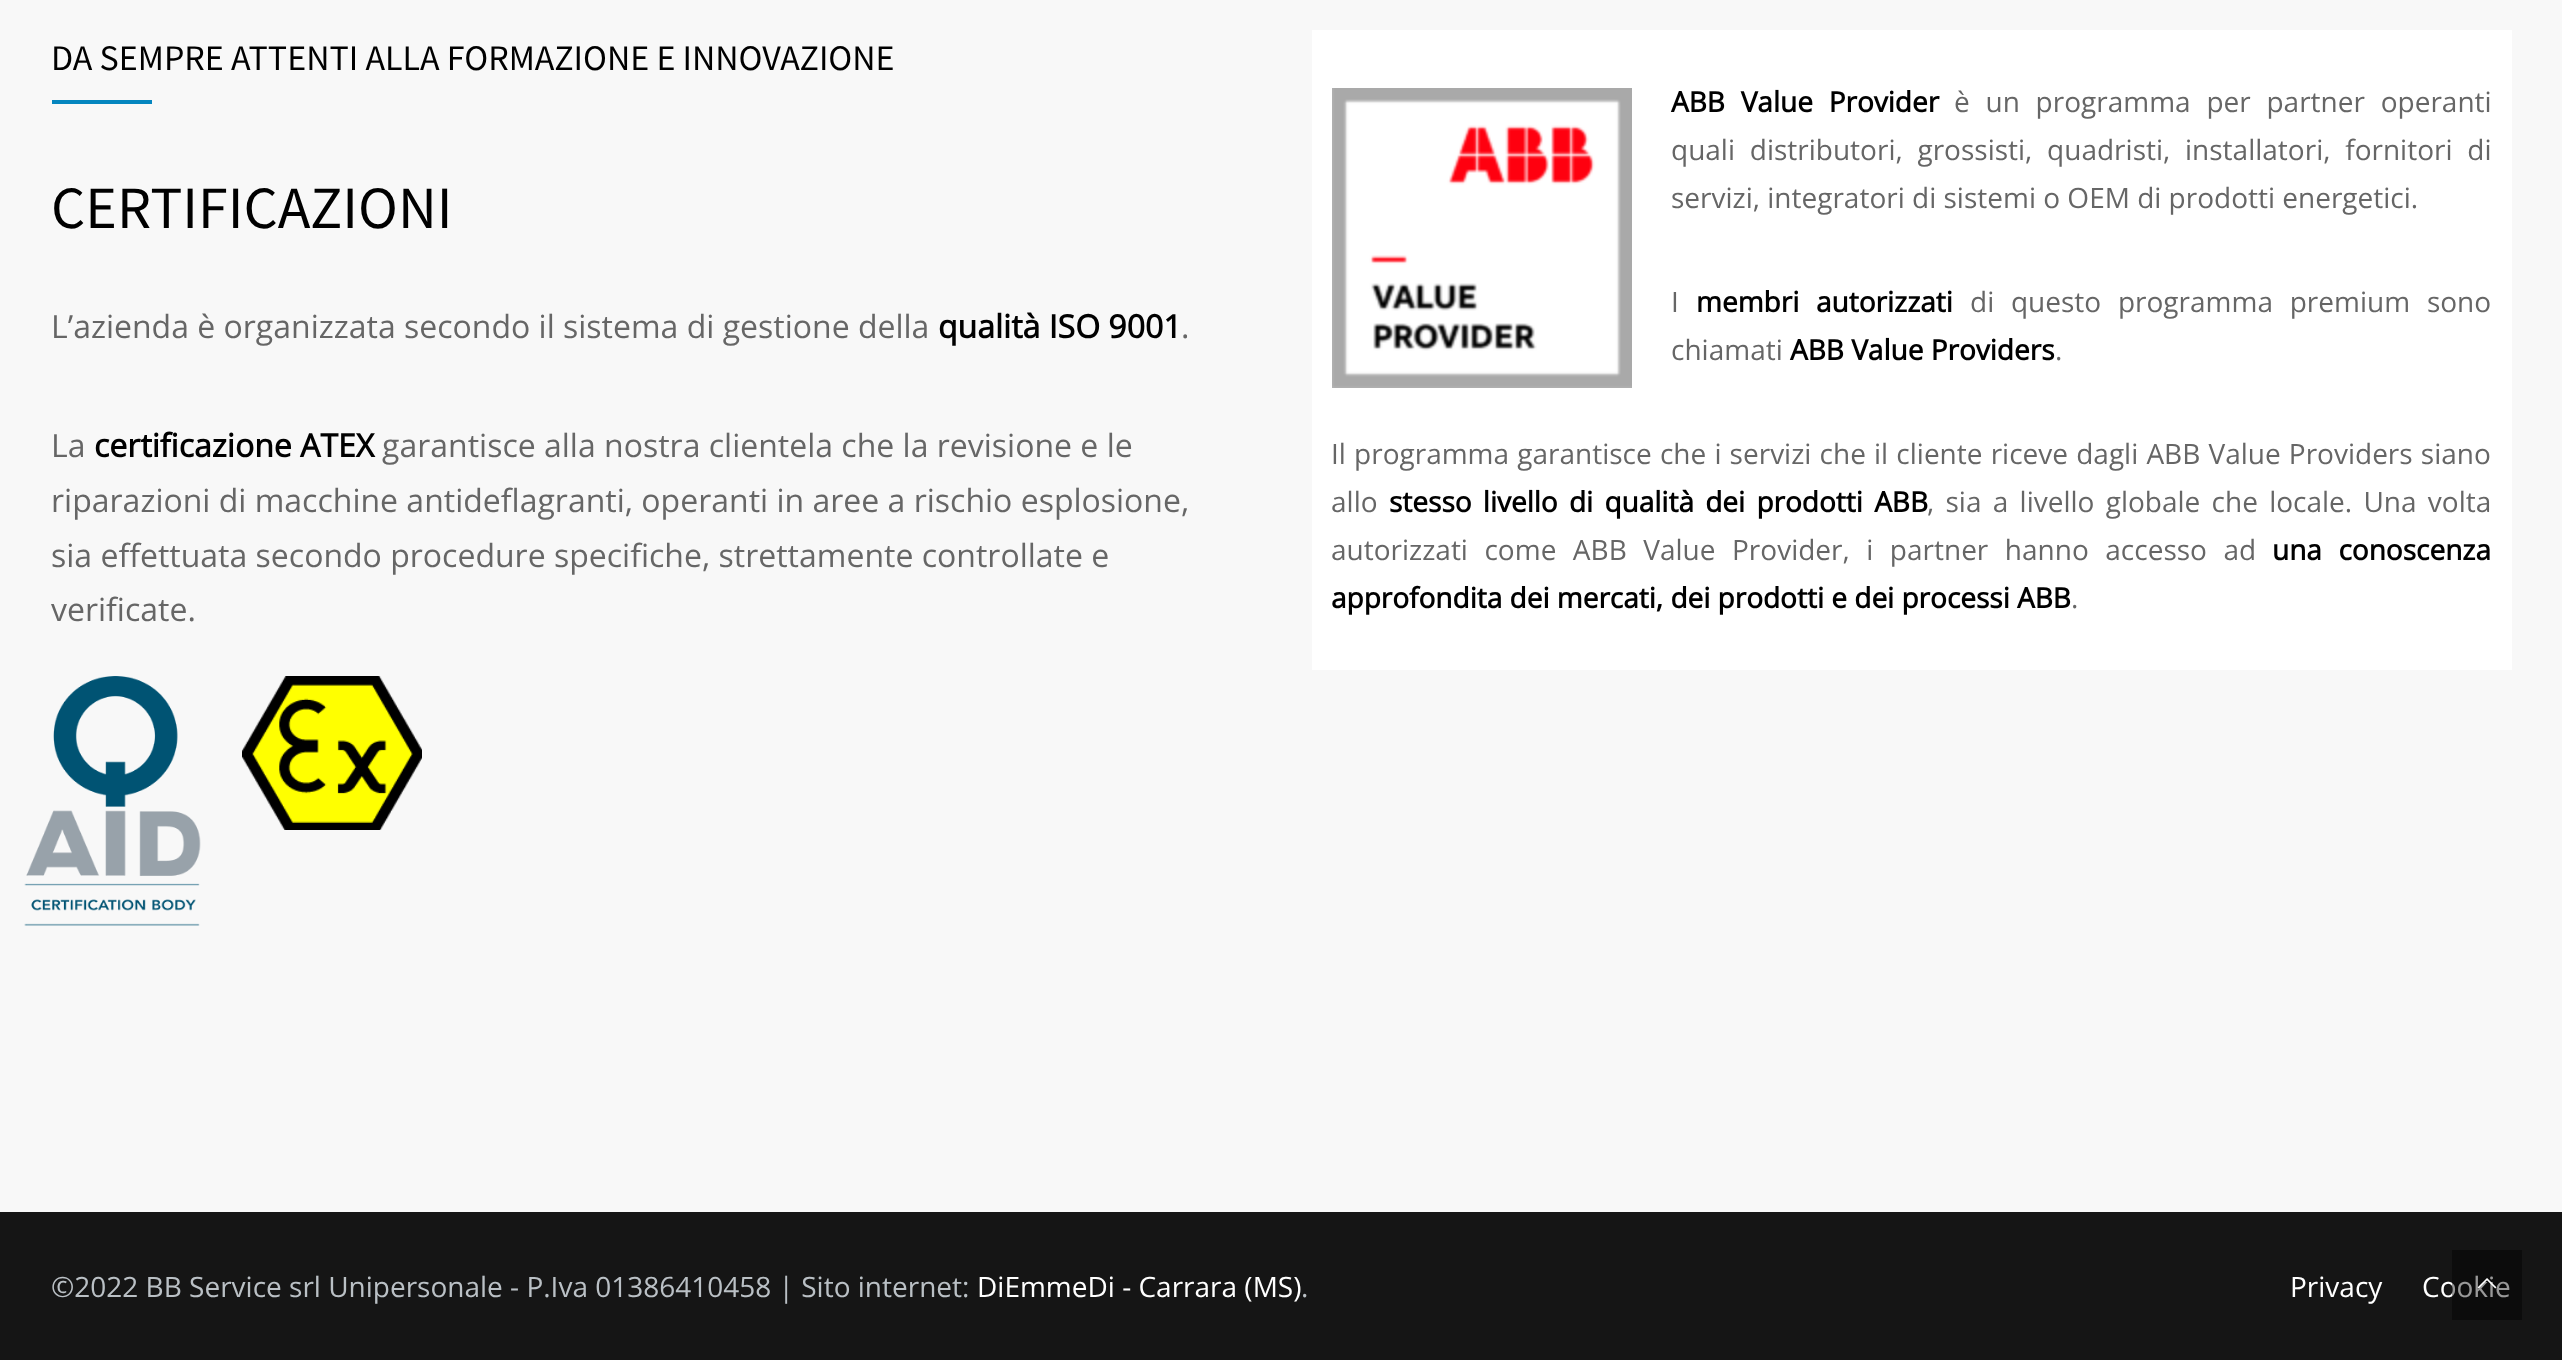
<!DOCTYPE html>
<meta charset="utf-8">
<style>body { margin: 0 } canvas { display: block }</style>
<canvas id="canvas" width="2562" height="1360"></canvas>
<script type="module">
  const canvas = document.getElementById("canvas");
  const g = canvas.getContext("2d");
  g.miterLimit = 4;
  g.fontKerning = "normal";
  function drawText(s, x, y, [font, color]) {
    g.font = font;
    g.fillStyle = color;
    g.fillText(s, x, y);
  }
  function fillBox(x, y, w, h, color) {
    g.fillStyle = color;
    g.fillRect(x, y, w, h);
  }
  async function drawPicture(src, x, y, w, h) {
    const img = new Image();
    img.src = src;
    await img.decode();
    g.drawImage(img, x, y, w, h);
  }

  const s1 = ["36px Source Sans Pro", "#000000"];
  const s2 = ["60px Source Sans Pro", "#000000"];
  const s3 = ["32px Open Sans", "#666666"];
  const s4 = ["bold 32px Open Sans", "#000000"];
  const s5 = ["bold 28px Open Sans", "#000000"];
  const s6 = ["28px Open Sans", "#666666"];
  const s7 = ["28px Open Sans", "#BAC0C5"];
  const s8 = ["28px Open Sans", "#FFFFFF"];

  fillBox(0, 0, 2562, 1360, "#F8F8F8");
  drawText("DA SEMPRE ATTENTI ALLA FORMAZIONE E INNOVAZIONE", 51, 70, s1);
  fillBox(52, 100, 100, 4, "#0586BF");
  drawText("CERTIFICAZIONI", 51, 228, s2);
  drawText("L’azienda è organizzata secondo il sistema di gestione della", 51, 338, s3);
  drawText("qualità ISO 9001", 938, 338, s4);
  drawText(".", 1181, 338, s3);
  drawText("La", 51, 457, s3);
  drawText("certificazione ATEX", 94, 457, s4);
  drawText("garantisce alla nostra clientela che la revisione e le", 382, 457, s3);
  drawText("riparazioni di macchine antideflagranti, operanti in aree a rischio esplosione,", 51, 512, s3);
  drawText("sia effettuata secondo procedure specifiche, strettamente controllate e", 51, 567, s3);
  drawText("verificate.", 51, 621, s3);
  await drawPicture("pic1.png", 24, 676, 177, 250);
  await drawPicture("pic2.png", 242, 676, 180, 154);
  fillBox(1312, 30, 1200, 640, "#FFFFFF");
  await drawPicture("pic3.png", 1332, 88, 300, 300);
  g.wordSpacing = "8.5px";
  drawText("ABB Value Provider", 1671, 112, s5);
  drawText("è un programma per partner operanti", 1954, 112, s6);
  g.wordSpacing = "7.5px";
  drawText("quali distributori, grossisti, quadristi, installatori, fornitori di", 1671, 160, s6);
  g.wordSpacing = "0px";
  drawText("servizi, integratori di sistemi o OEM di prodotti energetici.", 1671, 208, s6);
  drawText("I", 1671, 312, s6);
  g.wordSpacing = "9.5px";
  drawText("membri autorizzati", 1696, 312, s5);
  drawText("di questo programma premium sono", 1970, 312, s6);
  g.wordSpacing = "0px";
  drawText("chiamati", 1671, 360, s6);
  drawText("ABB Value Providers", 1790, 360, s5);
  drawText(".", 2055, 360, s6);
  g.wordSpacing = "0.9px";
  drawText("Il programma garantisce che i servizi che il cliente riceve dagli ABB Value Providers siano", 1331, 464, s6);
  g.wordSpacing = "0px";
  drawText("allo", 1331, 512, s6);
  g.wordSpacing = "4px";
  drawText("stesso livello di qualità dei prodotti ABB", 1389, 512, s5);
  drawText(", sia a livello globale che locale. Una volta", 1927, 512, s6);
  g.wordSpacing = "9.25px";
  drawText("autorizzati come ABB Value Provider, i partner hanno accesso ad", 1331, 560, s6);
  drawText("una conoscenza", 2272, 560, s5);
  g.wordSpacing = "0px";
  drawText("approfondita dei mercati, dei prodotti e dei processi ABB", 1331, 608, s5);
  drawText(".", 2071, 608, s6);
  fillBox(0, 1212, 2562, 148, "#151515");
  drawText("©2022 BB Service srl Unipersonale - P.Iva 01386410458 | Sito internet:", 51, 1297, s7);
  drawText("DiEmmeDi - Carrara (MS)", 977, 1297, s8);
  drawText(".", 1301, 1297, s7);
  drawText("Privacy", 2290, 1297, s8);
  drawText("Cookie", 2422, 1297, s8);
  fillBox(2452, 1250, 70, 70, "rgba(0, 0, 0, 0.4)");
  await drawPicture("pic4.png", 2477, 1278, 20, 11);
</script>
